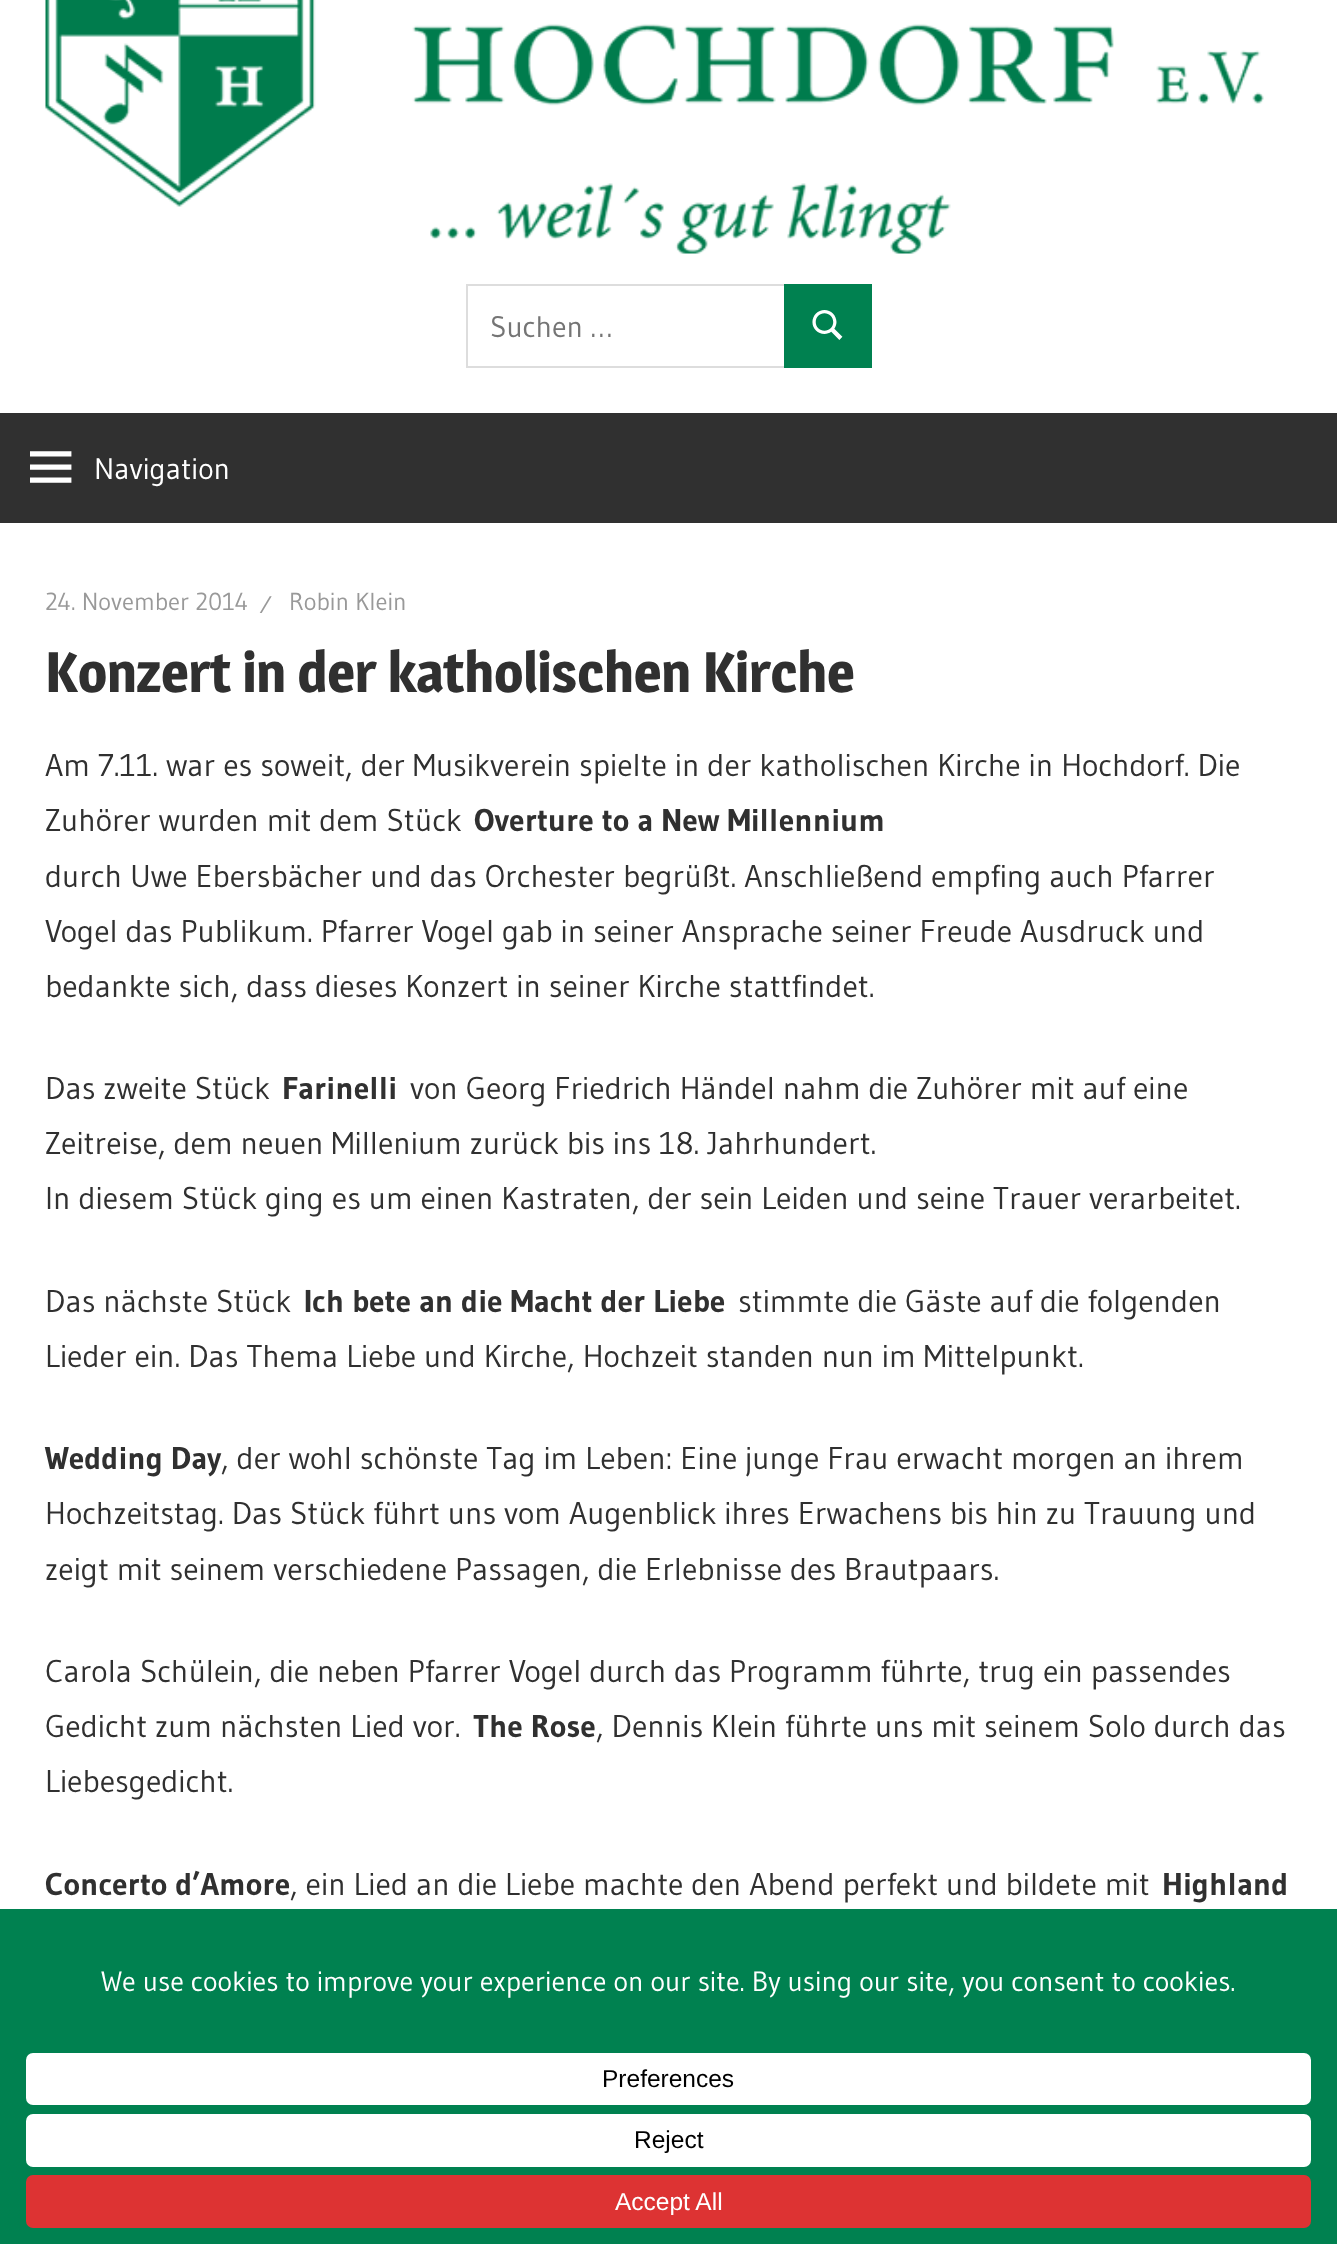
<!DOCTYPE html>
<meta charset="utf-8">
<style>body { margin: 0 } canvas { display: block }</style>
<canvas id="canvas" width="1337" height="2244"></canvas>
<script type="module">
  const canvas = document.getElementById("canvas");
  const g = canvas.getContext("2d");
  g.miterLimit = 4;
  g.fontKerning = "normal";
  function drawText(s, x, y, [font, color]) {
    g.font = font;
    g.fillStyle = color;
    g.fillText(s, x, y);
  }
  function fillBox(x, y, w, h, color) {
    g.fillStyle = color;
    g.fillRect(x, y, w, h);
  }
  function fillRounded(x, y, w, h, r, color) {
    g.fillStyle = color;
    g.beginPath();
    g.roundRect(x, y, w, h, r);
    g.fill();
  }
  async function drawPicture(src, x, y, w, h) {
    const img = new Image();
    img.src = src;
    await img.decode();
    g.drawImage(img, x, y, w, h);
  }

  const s1 = ["29.75px Gudea", "#757575"];
  const s2 = ["29.75px Gudea", "#FFFFFF"];
  const s3 = ["24.5px Gudea", "#999999"];
  const s4 = ["bold 56px Magra", "#303030"];
  const s5 = ["31.5px Gudea", "#303030"];
  const s6 = ["bold 31.5px Gudea", "#303030"];
  const s7 = ["28px Gudea", "#FFFFFF"];
  const s8 = ["24.5px Liberation Sans", "#000000"];
  const s9 = ["24.5px Liberation Sans", "#FFFFFF"];

  fillBox(0, 0, 1337, 2244, "#FFFFFF");
  await drawPicture("pic1.png", 45, 0, 1219, 254);
  g.strokeStyle = "#DDDDDD";
  g.lineWidth = 2;
  g.strokeRect(467, 285, 318, 82);
  drawText("Suchen …", 490, 337, s1);
  fillBox(784, 284, 88, 84, "#008150");
  await drawPicture("pic2.png", 812, 310, 31, 30);
  fillBox(0, 413, 1337, 110, "#303030");
  await drawPicture("pic3.png", 30, 451, 42, 32);
  drawText("Navigation", 94, 479, s2);
  drawText("24. November 2014", 45, 610, s3);
  drawText("⁄", 260, 613, s3);
  drawText("Robin Klein", 289, 610, s3);
  drawText("Konzert in der katholischen Kirche", 45, 692, s4);
  drawText("Am 7.11. war es soweit, der Musikverein spielte in der katholischen Kirche in Hochdorf. Die", 45, 776, s5);
  drawText("Zuhörer wurden mit dem Stück", 45, 831, s5);
  drawText("Overture to a New Millennium", 474, 831, s6);
  drawText("durch Uwe Ebersbächer und das Orchester begrüßt. Anschließend empfing auch Pfarrer", 45, 887, s5);
  drawText("Vogel das Publikum. Pfarrer Vogel gab in seiner Ansprache seiner Freude Ausdruck und", 45, 942, s5);
  drawText("bedankte sich, dass dieses Konzert in seiner Kirche stattfindet.", 45, 997, s5);
  drawText("Das zweite Stück", 45, 1099, s5);
  drawText("Farinelli", 282, 1099, s6);
  drawText("von Georg Friedrich Händel nahm die Zuhörer mit auf eine", 410, 1099, s5);
  drawText("Zeitreise, dem neuen Millenium zurück bis ins 18. Jahrhundert.", 45, 1154, s5);
  drawText("In diesem Stück ging es um einen Kastraten, der sein Leiden und seine Trauer verarbeitet.", 45, 1209, s5);
  drawText("Das nächste Stück", 45, 1312, s5);
  drawText("Ich bete an die Macht der Liebe", 304, 1312, s6);
  drawText("stimmte die Gäste auf die folgenden", 738, 1312, s5);
  drawText("Lieder ein. Das Thema Liebe und Kirche, Hochzeit standen nun im Mittelpunkt.", 45, 1367, s5);
  drawText("Wedding Day", 45, 1469, s6);
  drawText(", der wohl schönste Tag im Leben: Eine junge Frau erwacht morgen an ihrem", 221, 1469, s5);
  drawText("Hochzeitstag. Das Stück führt uns vom Augenblick ihres Erwachens bis hin zu Trauung und", 45, 1524, s5);
  drawText("zeigt mit seinem verschiedene Passagen, die Erlebnisse des Brautpaars.", 45, 1580, s5);
  drawText("Carola Schülein, die neben Pfarrer Vogel durch das Programm führte, trug ein passendes", 45, 1682, s5);
  drawText("Gedicht zum nächsten Lied vor.", 45, 1737, s5);
  drawText("The Rose", 473, 1737, s6);
  drawText(", Dennis Klein führte uns mit seinem Solo durch das", 596, 1737, s5);
  drawText("Liebesgedicht.", 45, 1792, s5);
  drawText("Concerto d’Amore", 45, 1895, s6);
  drawText(", ein Lied an die Liebe machte den Abend perfekt und bildete mit", 290, 1895, s5);
  drawText("Highland", 1162, 1895, s6);
  fillBox(0, 1909, 1337, 335, "#008150");
  drawText("We use cookies to improve your experience on our site. By using our site, you consent to cookies.", 101, 1991, s7);
  fillRounded(26, 2053, 1285, 52, 7, "#FFFFFF");
  drawText("Preferences", 602, 2087, s8);
  fillRounded(26, 2114, 1285, 53, 7, "#FFFFFF");
  drawText("Reject", 634, 2148, s8);
  fillRounded(26, 2175, 1285, 53, 7, "#DD3333");
  drawText("Accept All", 615, 2210, s9);
</script>
